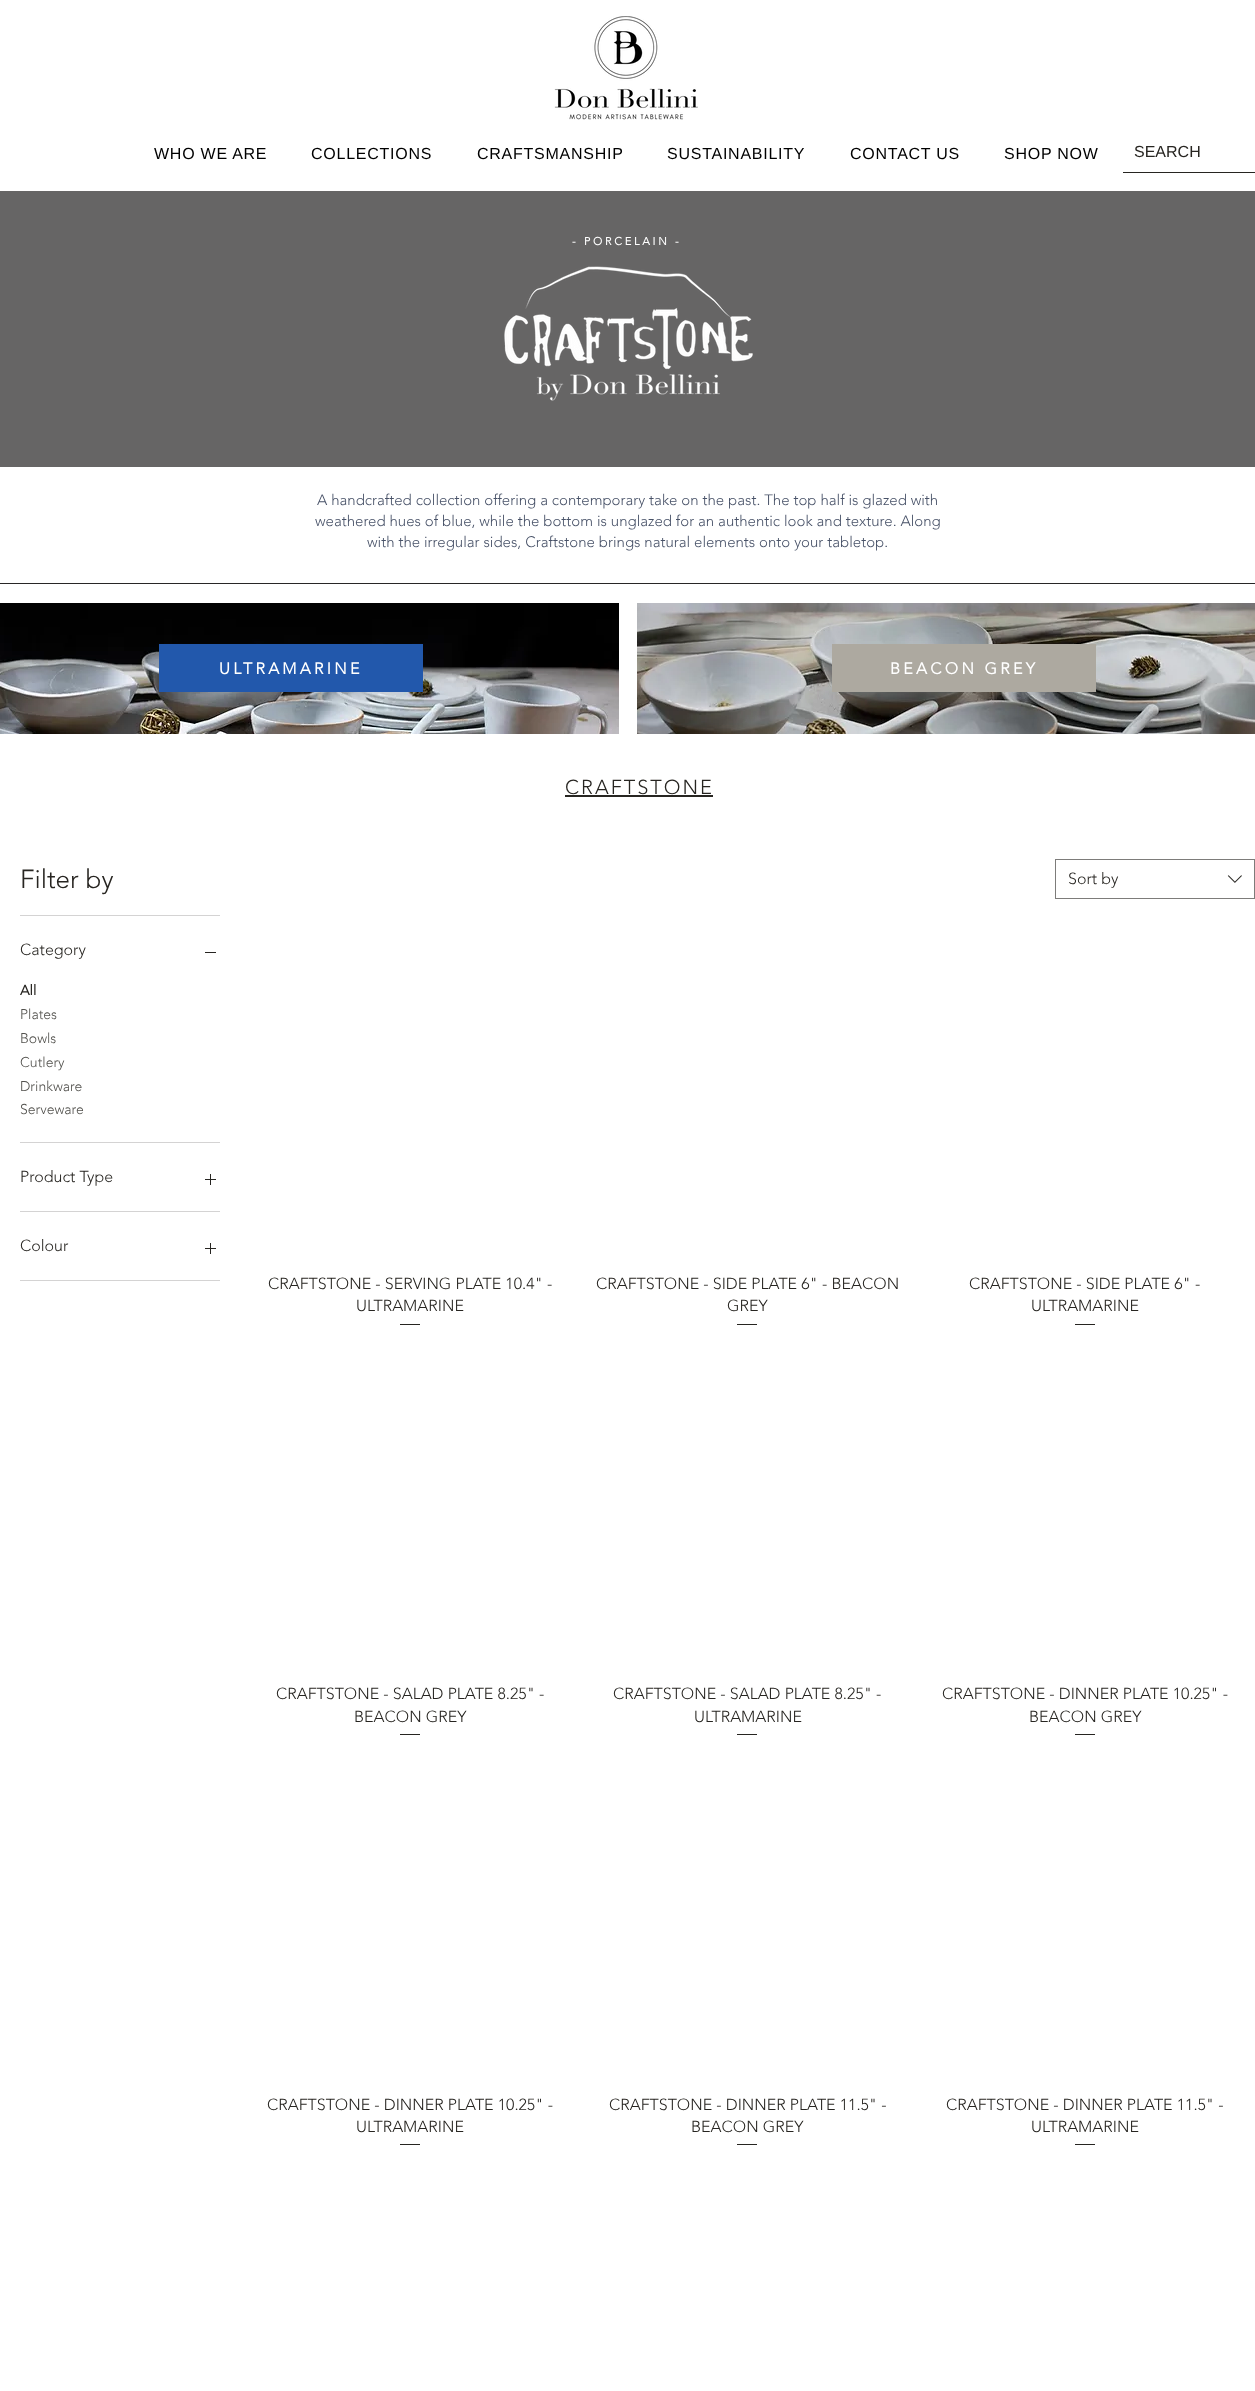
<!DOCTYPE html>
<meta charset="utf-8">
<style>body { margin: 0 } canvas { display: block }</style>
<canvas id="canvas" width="1255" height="2391"></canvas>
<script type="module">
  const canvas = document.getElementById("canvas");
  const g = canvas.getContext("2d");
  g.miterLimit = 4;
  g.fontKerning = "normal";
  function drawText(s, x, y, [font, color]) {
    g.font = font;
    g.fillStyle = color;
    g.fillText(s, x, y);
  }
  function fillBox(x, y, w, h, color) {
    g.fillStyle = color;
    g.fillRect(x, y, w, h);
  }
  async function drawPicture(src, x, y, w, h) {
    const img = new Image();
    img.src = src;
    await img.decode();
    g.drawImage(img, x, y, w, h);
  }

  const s1 = ["16px Liberation Sans", "#000000"];
  const s2 = ["16px Liberation Sans", "#272521"];
  const s3 = ["bold 11px 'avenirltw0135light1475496'", "#FFFFFF"];
  const s4 = ["300 15px 'avenirltw0135light1475496'", "#485268"];
  const s5 = ["bold 16px 'avenirltw0135light1475496'", "#FFFFFF"];
  const s6 = ["300 20px 'avenirltw0135light1475496'", "#272521"];
  const s7 = ["300 26px 'avenirltw0135light1475496'", "#272521"];
  const s8 = ["300 16px 'avenirltw0135light1475496'", "#272521"];
  const s9 = ["bold 14px 'avenirltw0135light1475496'", "#272521"];
  const s10 = ["300 14px 'avenirltw0135light1475496'", "#52514D"];

  fillBox(0, 0, 1255, 2391, "#FFFFFF");
  await drawPicture("pic1.png", 554, 16, 144, 104);
  g.letterSpacing = "0.75px";
  drawText("WHO WE ARE", 154, 159, s1);
  drawText("COLLECTIONS", 311, 159, s1);
  drawText("CRAFTSMANSHIP", 477, 159, s1);
  drawText("SUSTAINABILITY", 667, 159, s1);
  drawText("CONTACT US", 850, 159, s1);
  drawText("SHOP NOW", 1004, 159, s1);
  fillBox(1123, 172, 132, 1, "#272521");
  g.letterSpacing = "0px";
  drawText("SEARCH", 1134, 157, s2);
  fillBox(0, 191, 1255, 276, "#666565");
  g.letterSpacing = "2.75px";
  drawText("- PORCELAIN -", 572, 245, s3);
  await drawPicture("pic2.png", 504, 266, 249, 135);
  g.letterSpacing = "0px";
  drawText("A handcrafted collection offering a contemporary take on the past. The top half is glazed with", 317, 505, s4);
  drawText("weathered hues of blue, while the bottom is unglazed for an authentic look and texture. Along", 315, 526, s4);
  drawText("with the irregular sides, Craftstone brings natural elements onto your tabletop.", 367, 547, s4);
  fillBox(0, 583, 1255, 1, "#282626");
  await drawPicture("pic3.png", 0, 603, 619, 131);
  await drawPicture("pic4.png", 637, 603, 618, 131);
  fillBox(159, 644, 264, 48, "#2258AC");
  g.letterSpacing = "3.25px";
  drawText("ULTRAMARINE", 219, 674, s5);
  fillBox(832, 644, 264, 48, "#ADA9A0");
  drawText("BEACON GREY", 890, 674, s5);
  g.letterSpacing = "2px";
  drawText("CRAFTSTONE", 565, 794, s6);
  fillBox(565, 795, 148, 2, "#272521");
  fillBox(20, 915, 200, 1, "#D4D3D3");
  g.letterSpacing = "0px";
  drawText("Filter by", 20, 888, s7);
  fillBox(20, 1142, 200, 1, "#D4D3D3");
  drawText("Category", 20, 955, s8);
  fillBox(205, 952, 11, 1, "#272521");
  drawText("All", 20, 995, s9);
  drawText("Plates", 20, 1019, s10);
  drawText("Bowls", 20, 1043, s10);
  drawText("Cutlery", 20, 1067, s10);
  drawText("Drinkware", 20, 1091, s10);
  drawText("Serveware", 20, 1114, s10);
  fillBox(20, 1211, 200, 1, "#D4D3D3");
  drawText("Product Type", 20, 1182, s8);
  await drawPicture("pic5.png", 205, 1174, 11, 11);
  fillBox(20, 1280, 200, 1, "#D4D3D3");
  drawText("Colour", 20, 1251, s8);
  await drawPicture("pic5.png", 205, 1243, 11, 11);
  g.strokeStyle = "#7D7C7A";
  g.strokeRect(1055.5, 859.5, 199, 39);
  drawText("Sort by", 1068, 884, s8);
  await drawPicture("pic6.png", 1227, 875, 15, 8);
  drawText("CRAFTSTONE - SERVING PLATE 10.4\" -", 268, 1289, s8);
  drawText("ULTRAMARINE", 356, 1311, s8);
  fillBox(400, 1324, 20, 1, "#272521");
  drawText("CRAFTSTONE - SIDE PLATE 6\" - BEACON", 596, 1289, s8);
  drawText("GREY", 727, 1311, s8);
  fillBox(737, 1324, 20, 1, "#272521");
  drawText("CRAFTSTONE - SIDE PLATE 6\" -", 969, 1289, s8);
  drawText("ULTRAMARINE", 1031, 1311, s8);
  fillBox(1075, 1324, 20, 1, "#272521");
  drawText("CRAFTSTONE - SALAD PLATE 8.25\" -", 276, 1699, s8);
  drawText("BEACON GREY", 354, 1722, s8);
  fillBox(400, 1734, 20, 1, "#272521");
  drawText("CRAFTSTONE - SALAD PLATE 8.25\" -", 613, 1699, s8);
  drawText("ULTRAMARINE", 694, 1722, s8);
  fillBox(737, 1734, 20, 1, "#272521");
  drawText("CRAFTSTONE - DINNER PLATE 10.25\" -", 942, 1699, s8);
  drawText("BEACON GREY", 1029, 1722, s8);
  fillBox(1075, 1734, 20, 1, "#272521");
  drawText("CRAFTSTONE - DINNER PLATE 10.25\" -", 267, 2110, s8);
  drawText("ULTRAMARINE", 356, 2132, s8);
  fillBox(400, 2144, 20, 1, "#272521");
  drawText("CRAFTSTONE - DINNER PLATE 11.5\" -", 609, 2110, s8);
  drawText("BEACON GREY", 691, 2132, s8);
  fillBox(737, 2144, 20, 1, "#272521");
  drawText("CRAFTSTONE - DINNER PLATE 11.5\" -", 946, 2110, s8);
  drawText("ULTRAMARINE", 1031, 2132, s8);
  fillBox(1075, 2144, 20, 1, "#272521");
</script>
